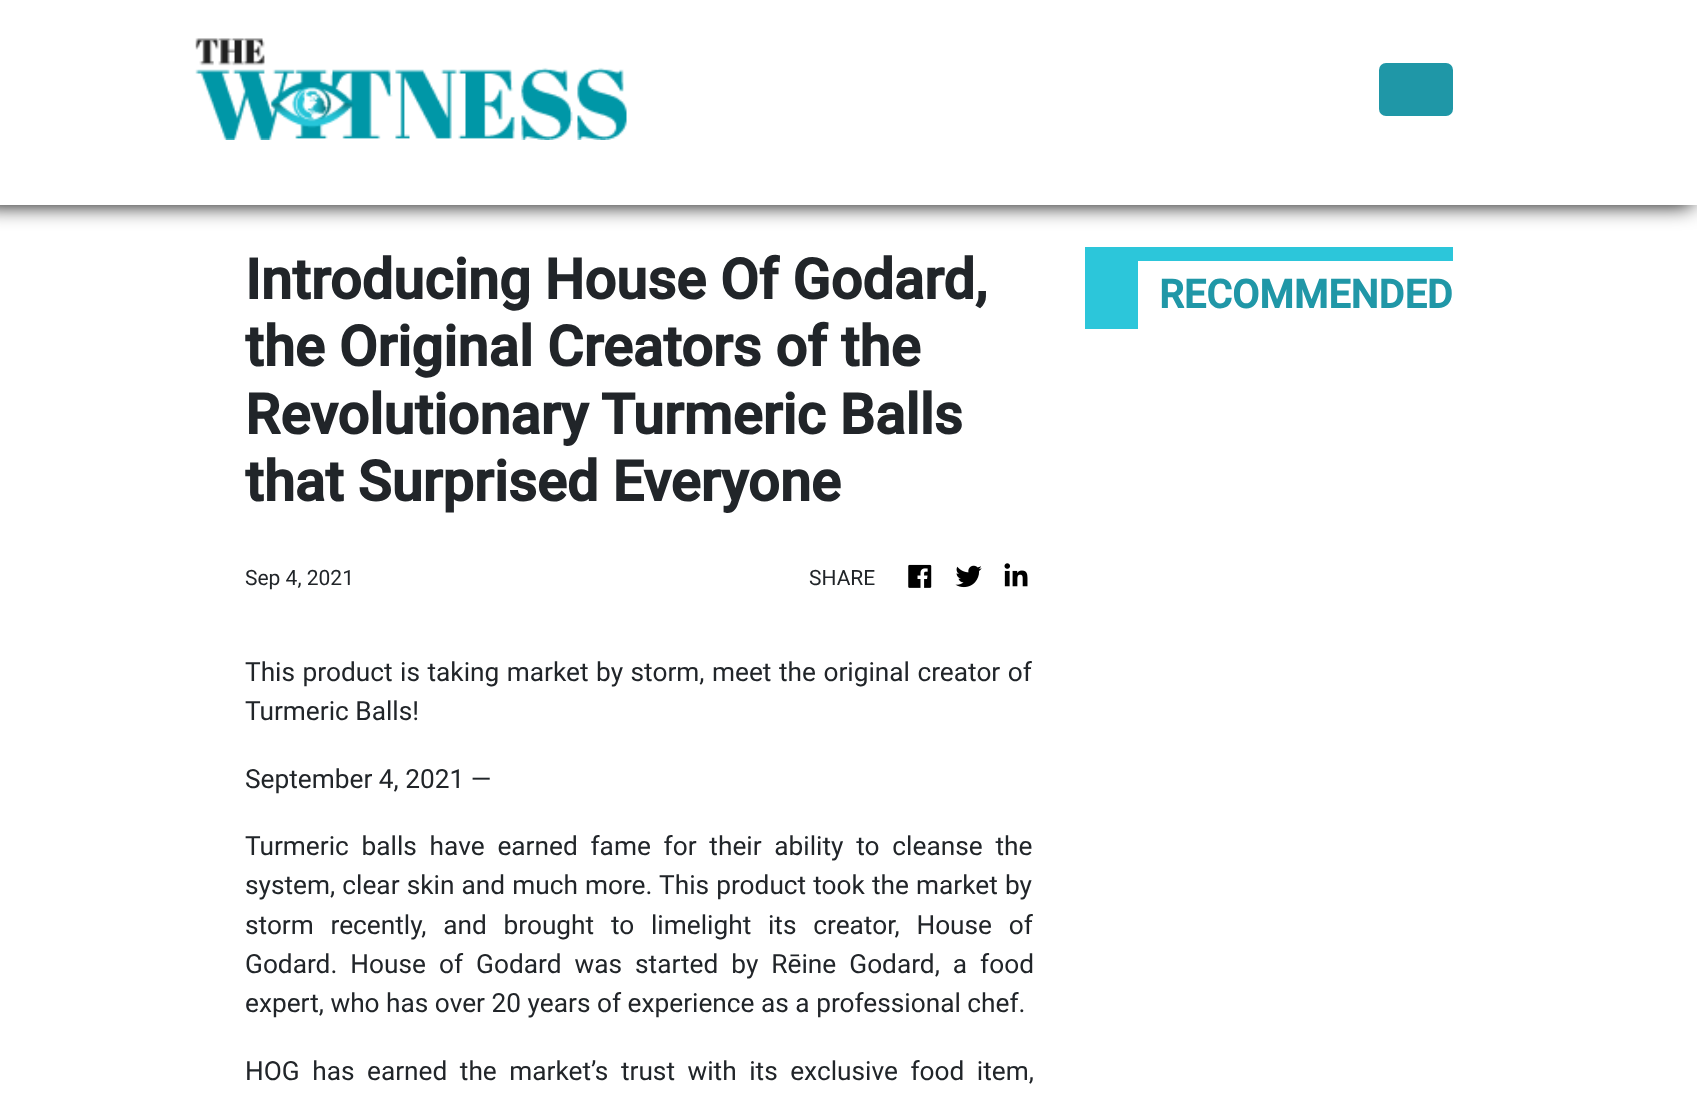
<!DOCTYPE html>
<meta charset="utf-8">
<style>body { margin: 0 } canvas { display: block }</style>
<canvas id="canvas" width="1697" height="1101"></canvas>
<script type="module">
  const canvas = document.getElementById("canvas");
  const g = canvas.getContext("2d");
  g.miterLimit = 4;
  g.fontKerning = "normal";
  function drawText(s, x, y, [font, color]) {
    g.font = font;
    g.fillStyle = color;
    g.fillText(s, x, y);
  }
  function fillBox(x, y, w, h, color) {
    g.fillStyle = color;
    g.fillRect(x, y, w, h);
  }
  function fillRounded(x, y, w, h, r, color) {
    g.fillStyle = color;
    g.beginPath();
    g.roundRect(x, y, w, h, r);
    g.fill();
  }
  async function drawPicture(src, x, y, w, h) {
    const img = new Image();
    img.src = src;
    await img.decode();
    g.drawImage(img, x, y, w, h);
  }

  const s1 = ["bold 56px Roboto", "#212529"];
  const s2 = ["21px Roboto", "#212529"];
  const s3 = ["26.25px Roboto", "#212529"];
  const s4 = ["bold 39.5px Roboto", "#2097A7"];

  fillBox(0, 0, 1697, 1101, "#FFFFFF");
  g.fillStyle = "#000000";
  g.filter = "blur(10.5px)";
  g.beginPath();
  g.rect(-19, -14, 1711, 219);
  g.fill();
  g.filter = "none";
  fillBox(0, 0, 1697, 205, "#FFFFFF");
  await drawPicture("pic1.png", 195, 38, 432, 102);
  fillRounded(1379, 63, 74, 53, 7, "#1F97A7");
  drawText("Introducing House Of Godard,", 245, 299, s1);
  drawText("the Original Creators of the", 245, 366, s1);
  drawText("Revolutionary Turmeric Balls", 245, 434, s1);
  drawText("that Surprised Everyone", 245, 501, s1);
  drawText("Sep 4, 2021", 245, 585, s2);
  drawText("SHARE", 809, 585, s2);
  await drawPicture("pic2.png", 908, 564, 24, 24);
  await drawPicture("pic3.png", 955, 565, 27, 23);
  await drawPicture("pic4.png", 1004, 563, 24, 24);
  g.wordSpacing = "1px";
  drawText("This product is taking market by storm, meet the original creator of", 245, 681, s3);
  g.wordSpacing = "0px";
  drawText("Turmeric Balls!", 245, 720, s3);
  drawText("September 4, 2021 —", 245, 788, s3);
  g.wordSpacing = "6.25px";
  drawText("Turmeric balls have earned fame for their ability to cleanse the", 245, 855, s3);
  g.wordSpacing = "0.6px";
  drawText("system, clear skin and much more. This product took the market by", 245, 894, s3);
  g.wordSpacing = "10.25px";
  drawText("storm recently, and brought to limelight its creator, House of", 245, 934, s3);
  g.wordSpacing = "6.5px";
  drawText("Godard. House of Godard was started by Rēine Godard, a food", 245, 973, s3);
  g.wordSpacing = "0px";
  drawText("expert, who has over 20 years of experience as a professional chef.", 245, 1012, s3);
  g.wordSpacing = "6px";
  drawText("HOG has earned the market’s trust with its exclusive food item,", 245, 1080, s3);
  fillBox(1138, 247, 315, 14, "#2CC6DA");
  fillBox(1085, 247, 53, 82, "#2CC6DA");
  g.wordSpacing = "0px";
  drawText("RECOMMENDED", 1159, 308, s4);
</script>
